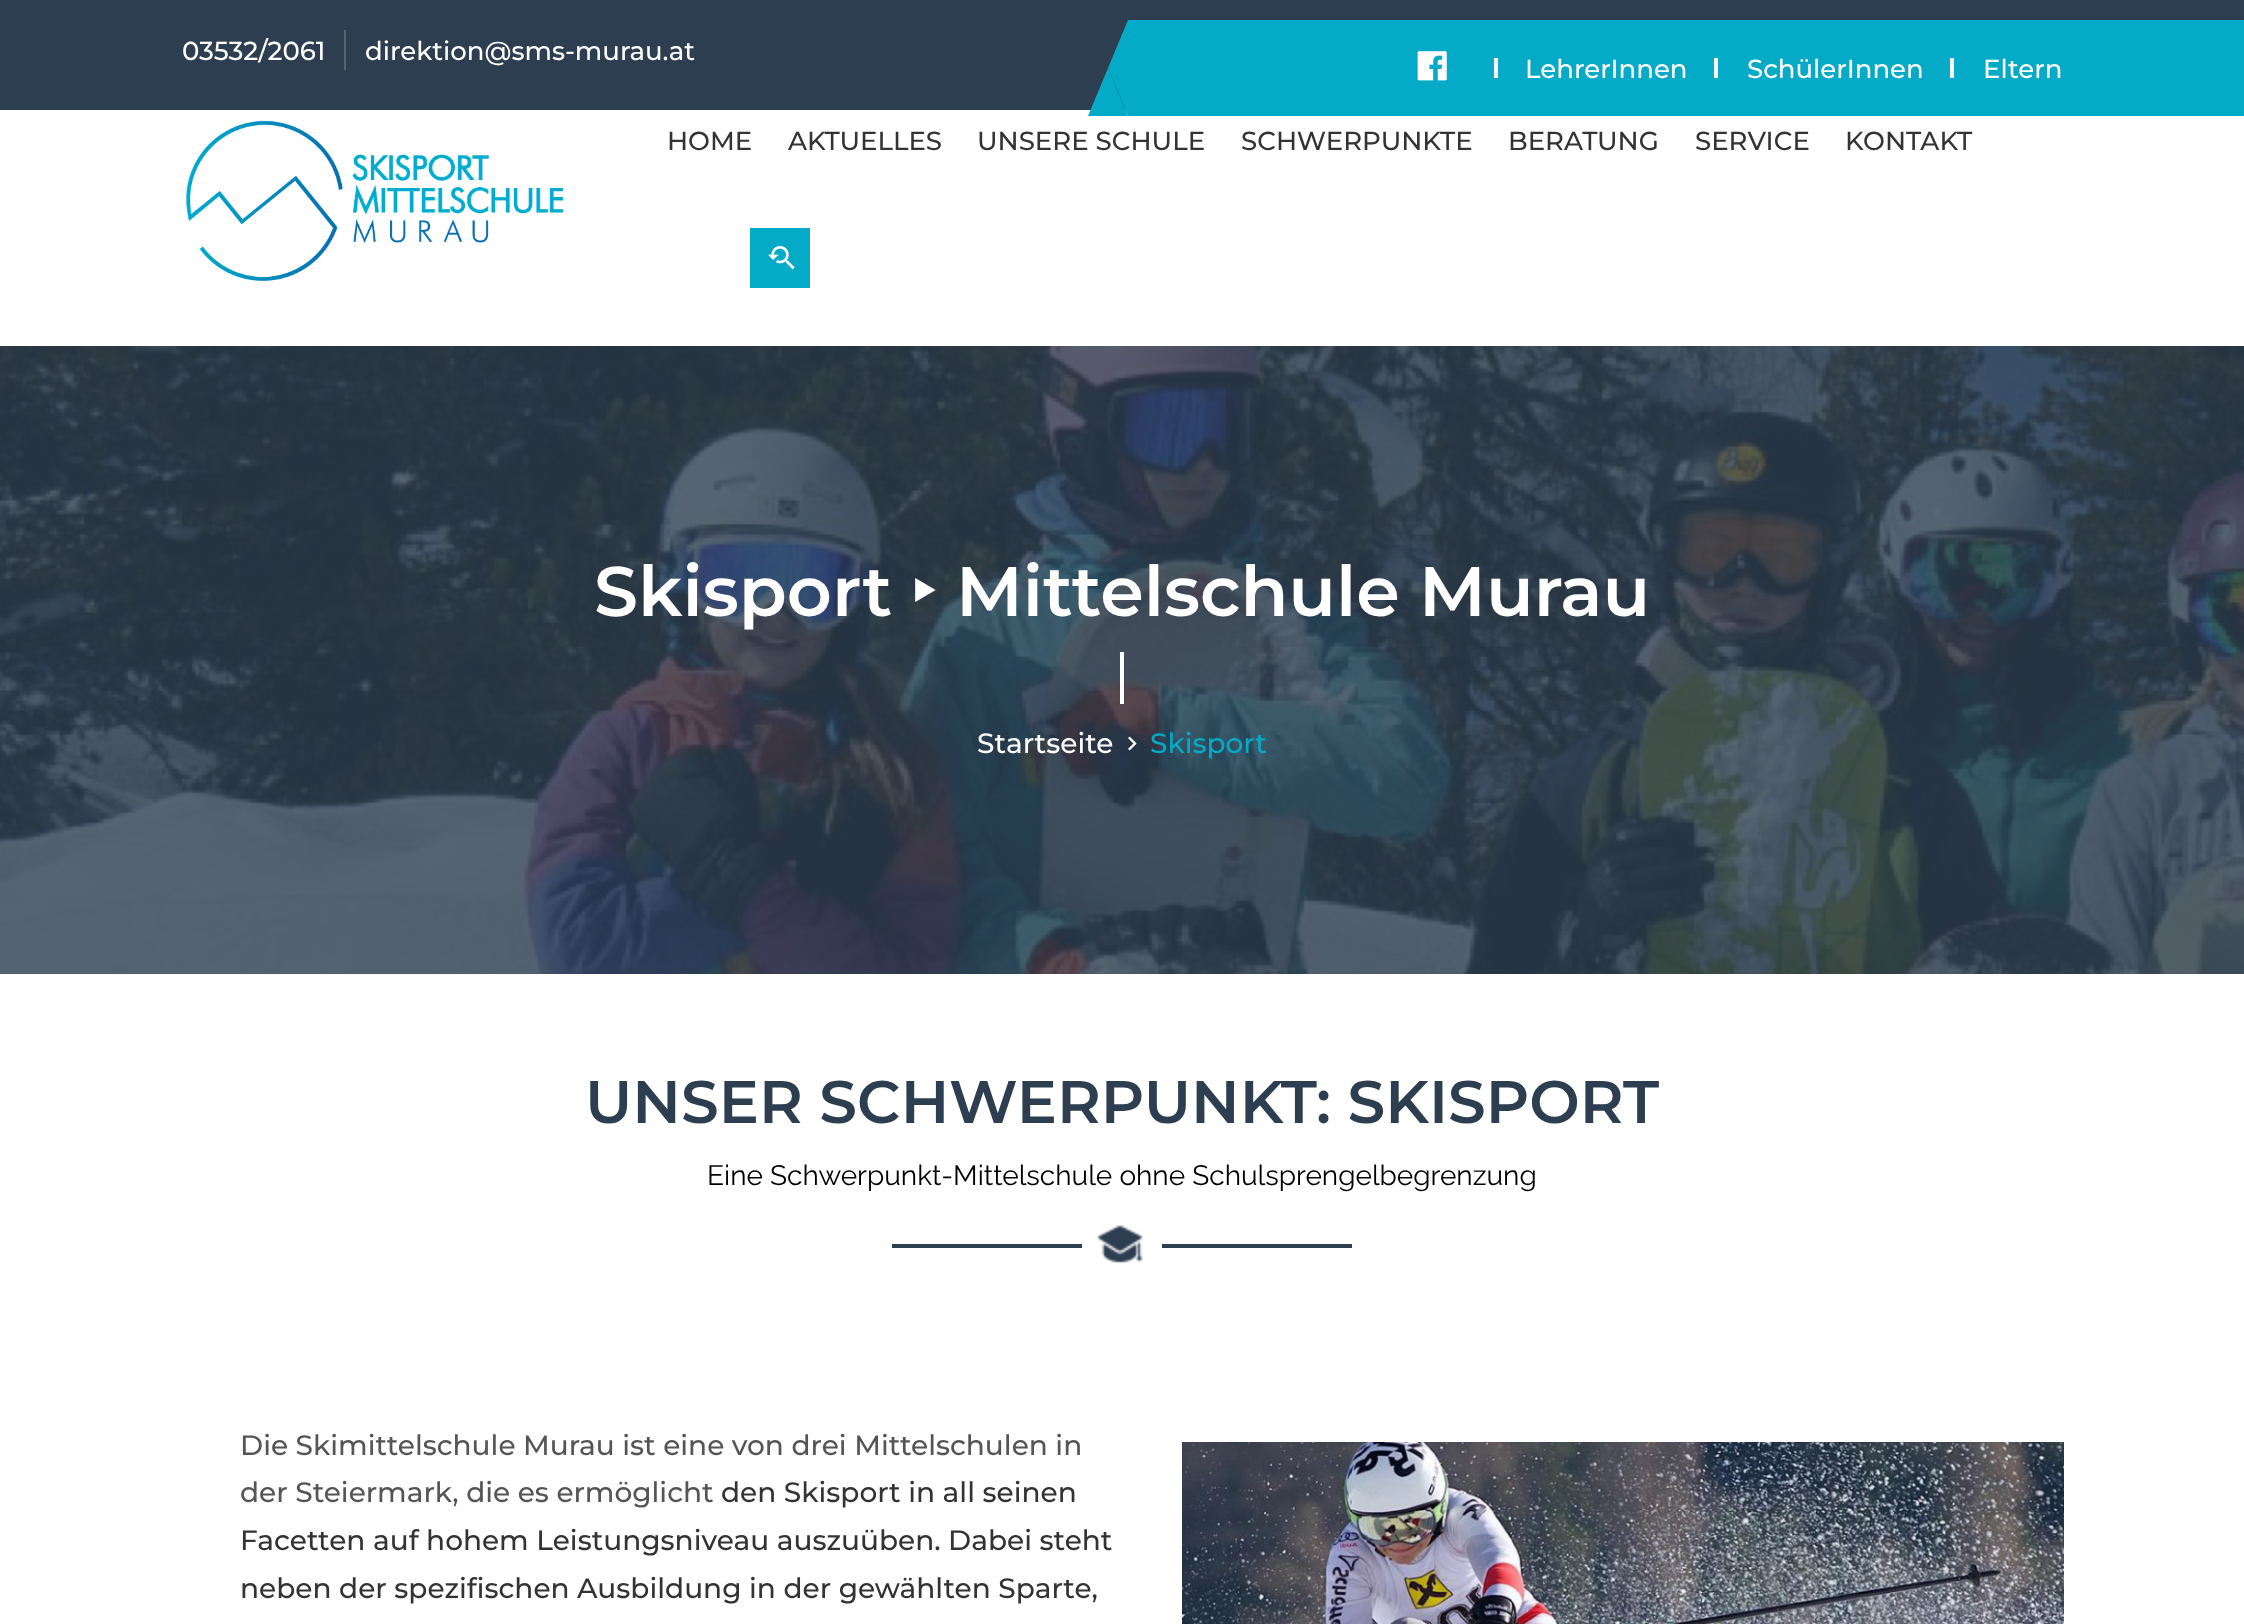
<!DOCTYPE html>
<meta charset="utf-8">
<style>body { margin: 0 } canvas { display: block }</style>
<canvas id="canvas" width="2244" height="1624"></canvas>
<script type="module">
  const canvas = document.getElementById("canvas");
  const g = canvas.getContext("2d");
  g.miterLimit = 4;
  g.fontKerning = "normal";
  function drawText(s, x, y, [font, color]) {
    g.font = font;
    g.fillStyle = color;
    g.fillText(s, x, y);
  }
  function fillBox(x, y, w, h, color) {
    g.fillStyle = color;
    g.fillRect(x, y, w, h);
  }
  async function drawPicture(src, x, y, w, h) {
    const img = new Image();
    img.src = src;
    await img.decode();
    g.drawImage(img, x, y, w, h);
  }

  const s1 = ["500 26px Montserrat", "#FFFFFF"];
  const s2 = ["500 26px Montserrat", "#333333"];
  const s3 = ["600 70px Montserrat", "#FFFFFF"];
  const s4 = ["600 70px Noto Sans", "#FFFFFF"];
  const s5 = ["500 28px Montserrat", "#FFFFFF"];
  const s6 = ["500 28px Montserrat", "#05AAC6"];
  const s7 = ["600 60px Montserrat", "#2D3E50"];
  const s8 = ["28px Raleway", "#000000"];
  const s9 = ["500 28px Montserrat", "#555555"];
  const s10 = ["500 28px Montserrat", "#333333"];

  fillBox(0, 0, 2244, 1624, "#FFFFFF");
  fillBox(0, 0, 2244, 110, "#2D3E50");
  g.fillStyle = "#05AAC6";
  g.beginPath();
  g.moveTo(1128, 20);
  g.lineTo(1128, 116);
  g.lineTo(1108, 68);
  g.closePath();
  g.fill();
  g.beginPath();
  g.moveTo(1128, 116);
  g.lineTo(1088, 116);
  g.lineTo(1108, 68);
  g.closePath();
  g.fill();
  fillBox(1128, 20, 1116, 96, "#05AAC6");
  drawText("03532/2061", 182, 60, s1);
  fillBox(344, 30, 2, 40, "#576573");
  drawText("direktion@sms-murau.at", 365, 60, s1);
  await drawPicture("pic1.png", 1417, 51, 30, 30);
  fillBox(1494, 58, 4, 20, "#FFFFFF");
  drawText("LehrerInnen", 1525, 78, s1);
  fillBox(1714, 58, 4, 20, "#FFFFFF");
  drawText("SchülerInnen", 1747, 78, s1);
  fillBox(1950, 58, 4, 20, "#FFFFFF");
  drawText("Eltern", 1983, 78, s1);
  await drawPicture("pic2.png", 186, 120, 378, 161);
  drawText("HOME", 667, 150, s2);
  drawText("AKTUELLES", 788, 150, s2);
  drawText("UNSERE SCHULE", 977, 150, s2);
  drawText("SCHWERPUNKTE", 1241, 150, s2);
  drawText("BERATUNG", 1508, 150, s2);
  drawText("SERVICE", 1695, 150, s2);
  drawText("KONTAKT", 1845, 150, s2);
  fillBox(750, 228, 60, 60, "#05AAC6");
  await drawPicture("pic3.png", 768, 246, 27, 24);
  await drawPicture("pic4.png", 0, 346, 2244, 628);
  drawText("Skisport", 594, 616, s3);
  drawText("‣", 911, 616, s4);
  drawText("Mittelschule Murau", 956, 616, s3);
  fillBox(1120, 652, 4, 52, "#FFFFFF");
  drawText("Startseite", 977, 753, s5);
  await drawPicture("pic5.png", 1128, 736, 9, 15);
  drawText("Skisport", 1150, 753, s6);
  drawText("UNSER SCHWERPUNKT: SKISPORT", 585, 1123, s7);
  drawText("Eine Schwerpunkt-Mittelschule ohne Schulsprengelbegrenzung", 707, 1185, s8);
  fillBox(892, 1244, 460, 4, "#2D3E50");
  await drawPicture("pic6.png", 1082, 1225, 80, 38);
  drawText("Die Skimittelschule Murau ist eine von drei Mittelschulen in", 240, 1455, s9);
  drawText("der Steiermark, die es ermöglicht", 240, 1502, s9);
  drawText("den Skisport in all seinen", 721, 1502, s10);
  drawText("Facetten auf hohem Leistungsniveau auszuüben. Dabei steht", 240, 1550, s10);
  drawText("neben der spezifischen Ausbildung in der gewählten Sparte,", 240, 1598, s10);
  await drawPicture("pic7.png", 1182, 1442, 882, 182);
</script>
